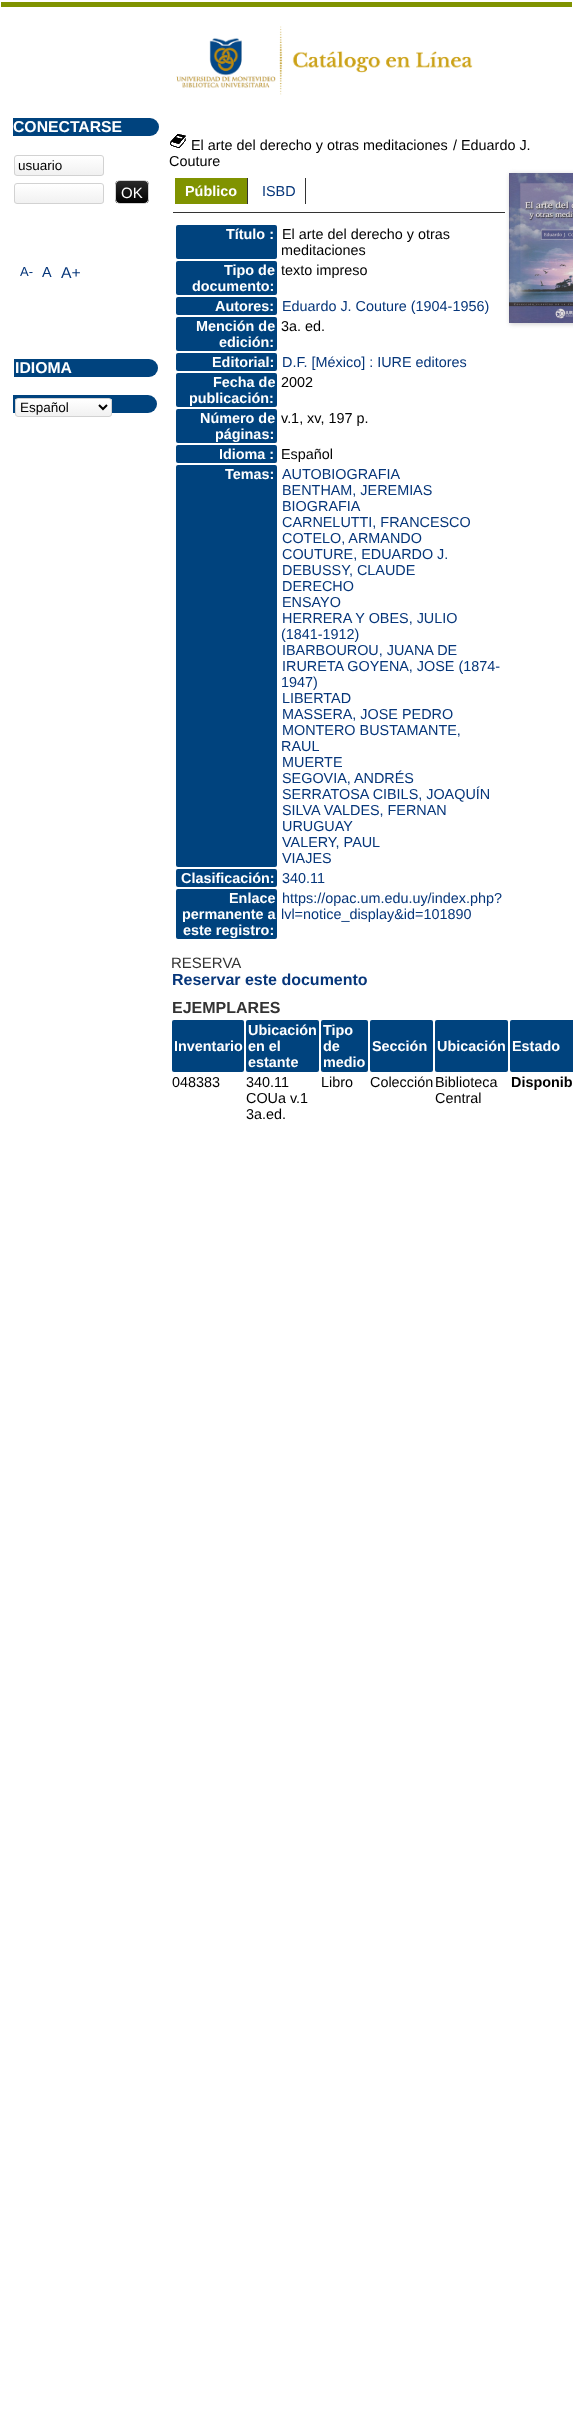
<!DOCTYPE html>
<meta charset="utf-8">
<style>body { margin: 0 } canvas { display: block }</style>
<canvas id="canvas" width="573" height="2409"></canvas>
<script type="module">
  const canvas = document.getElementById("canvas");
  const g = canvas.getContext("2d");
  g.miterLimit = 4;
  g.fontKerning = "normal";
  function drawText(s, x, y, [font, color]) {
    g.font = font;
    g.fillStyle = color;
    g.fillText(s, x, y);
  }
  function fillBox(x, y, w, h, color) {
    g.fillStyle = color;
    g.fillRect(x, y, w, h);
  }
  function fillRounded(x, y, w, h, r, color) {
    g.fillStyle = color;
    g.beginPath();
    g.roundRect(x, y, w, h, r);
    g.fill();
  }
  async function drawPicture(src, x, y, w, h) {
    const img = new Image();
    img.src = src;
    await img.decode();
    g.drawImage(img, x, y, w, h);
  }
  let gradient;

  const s1 = ["bold 15.75px Liberation Sans", "#FFFFFF"];
  const s2 = ["13.5px Liberation Sans", "#000000"];
  const s3 = ["15px Liberation Sans", "#FFFFFF"];
  const s4 = ["13px Liberation Sans", "#06367A"];
  const s5 = ["14.4px Liberation Sans", "#06367A"];
  const s6 = ["15.75px Liberation Sans", "#06367A"];
  const s7 = ["14.4px Liberation Sans", "#000000"];
  const s8 = ["bold 14.4px Liberation Sans", "#FFFFFF"];
  const s9 = ["15px Liberation Sans", "#333333"];
  const s10 = ["bold 16px Liberation Sans", "#06367A"];
  const s11 = ["bold 16px Liberation Sans", "#333333"];
  const s12 = ["bold 14.4px Liberation Sans", "#000000"];

  fillBox(0, 0, 573, 2409, "#FFFFFF");
  fillBox(1, 2, 571, 5, "#809300");
  g.fillStyle = "#00437E";
  g.beginPath();
  g.roundRect(13, 118, 146, 18, [0, 9, 9, 0]);
  g.fill();
  drawText("CONECTARSE", 13, 132, s1);
  g.save();
  g.beginPath();
  g.roundRect(14, 155, 90, 21, 3);
  g.clip();
  gradient = g.createLinearGradient(59, 156, 59, 175);
  gradient.addColorStop(0.01, "#FFFFFF");
  gradient.addColorStop(1, "#F1F1F1");
  g.fillStyle = gradient;
  g.fillRect(14, 156, 90, 19);
  g.restore();
  g.beginPath();
  g.roundRect(14.5, 155.5, 89, 20, 2.5);
  g.strokeStyle = "#D2D2D2";
  g.stroke();
  drawText("usuario", 18, 170, s2);
  g.save();
  g.beginPath();
  g.roundRect(14, 183, 90, 21, 3);
  g.clip();
  gradient = g.createLinearGradient(59, 184, 59, 203);
  gradient.addColorStop(0.01, "#FFFFFF");
  gradient.addColorStop(1, "#F1F1F1");
  g.fillStyle = gradient;
  g.fillRect(14, 184, 90, 19);
  g.restore();
  g.beginPath();
  g.roundRect(14.5, 183.5, 89, 20, 2.5);
  g.stroke();
  g.save();
  g.beginPath();
  g.roundRect(115, 180, 34, 24, 5);
  g.clip();
  gradient = g.createLinearGradient(132, 181, 132, 203);
  gradient.addColorStop(0, "#2A2A2A");
  gradient.addColorStop(1, "#000000");
  g.fillStyle = gradient;
  g.fillRect(115, 181, 34, 22);
  g.restore();
  g.beginPath();
  g.roundRect(115.5, 180.5, 33, 23, 4.5);
  g.stroke();
  drawText("OK", 121, 198, s3);
  drawText("A-", 20, 276, s4);
  drawText("A", 42, 277, s5);
  drawText("A+", 61, 278, s6);
  g.fillStyle = "#00437E";
  g.beginPath();
  g.roundRect(14, 359, 144, 18, [0, 9, 9, 0]);
  g.fill();
  drawText("IDIOMA", 15, 373, s1);
  g.fillStyle = "#00437E";
  g.beginPath();
  g.roundRect(13, 395, 144, 18, [0, 9, 9, 0]);
  g.fill();
  g.save();
  g.beginPath();
  g.roundRect(15, 398, 97, 19, 3);
  g.clip();
  gradient = g.createLinearGradient(64, 399, 64, 416);
  gradient.addColorStop(0.01, "#FFFFFF");
  gradient.addColorStop(1, "#F1F1F1");
  g.fillStyle = gradient;
  g.fillRect(15, 399, 97, 17);
  g.restore();
  g.beginPath();
  g.roundRect(15.5, 398.5, 96, 18, 2.5);
  g.stroke();
  g.beginPath();
  g.moveTo(99, 405);
  g.lineTo(103, 409);
  g.lineTo(107, 405);
  g.strokeStyle = "#000000";
  g.lineWidth = 2;
  g.stroke();
  drawText("Español", 20, 412, s2);
  await drawPicture("pic1.png", 176, 26, 297, 69);
  await drawPicture("pic2.png", 170, 134, 16, 14);
  drawText("El arte del derecho y otras meditaciones", 191, 150, s7);
  drawText("/ Eduardo J.", 453, 150, s7);
  drawText("Couture", 169, 166, s7);
  fillBox(173, 212, 332, 1, "#333333");
  fillBox(175, 178, 72, 26, "#809300");
  drawText("Público", 185, 196, s8);
  fillBox(247, 178, 1, 26, "#333333");
  drawText("ISBD", 262, 196, s5);
  fillBox(305, 178, 1, 26, "#333333");
  fillRounded(176, 225, 101, 34, 2, "#00437E");
  drawText("Título :", 226, 239, s8);
  drawText("El arte del derecho y otras", 282, 239, s7);
  drawText("meditaciones", 281, 255, s7);
  fillRounded(176, 261, 101, 34, 2, "#00437E");
  drawText("Tipo de", 224, 275, s8);
  drawText("documento:", 192, 291, s8);
  drawText("texto impreso", 281, 275, s7);
  fillRounded(176, 297, 101, 18, 2, "#00437E");
  drawText("Autores:", 215, 311, s8);
  drawText("Eduardo J. Couture (1904-1956)", 282, 311, s5);
  fillRounded(176, 317, 101, 34, 2, "#00437E");
  drawText("Mención de", 196, 331, s8);
  drawText("edición:", 219, 347, s8);
  drawText("3a. ed.", 281, 331, s7);
  fillRounded(176, 353, 101, 18, 2, "#00437E");
  drawText("Editorial:", 212, 367, s8);
  drawText("D.F. [México] : IURE editores", 282, 367, s5);
  fillRounded(176, 373, 101, 34, 2, "#00437E");
  drawText("Fecha de", 213, 387, s8);
  drawText("publicación:", 189, 403, s8);
  drawText("2002", 281, 387, s7);
  fillRounded(176, 409, 101, 34, 2, "#00437E");
  drawText("Número de", 200, 423, s8);
  drawText("páginas:", 215, 439, s8);
  drawText("v.1, xv, 197 p.", 281, 423, s7);
  fillRounded(176, 445, 101, 18, 2, "#00437E");
  drawText("Idioma :", 219, 459, s8);
  drawText("Español", 281, 459, s7);
  fillRounded(176, 465, 101, 402, 2, "#00437E");
  drawText("Temas:", 225, 479, s8);
  drawText("AUTOBIOGRAFIA", 282, 479, s5);
  drawText("BENTHAM, JEREMIAS", 282, 495, s5);
  drawText("BIOGRAFIA", 282, 511, s5);
  drawText("CARNELUTTI, FRANCESCO", 282, 527, s5);
  drawText("COTELO, ARMANDO", 282, 543, s5);
  drawText("COUTURE, EDUARDO J.", 282, 559, s5);
  drawText("DEBUSSY, CLAUDE", 282, 575, s5);
  drawText("DERECHO", 282, 591, s5);
  drawText("ENSAYO", 282, 607, s5);
  drawText("HERRERA Y OBES, JULIO", 282, 623, s5);
  drawText("(1841-1912)", 281, 639, s5);
  drawText("IBARBOUROU, JUANA DE", 282, 655, s5);
  drawText("IRURETA GOYENA, JOSE (1874-", 282, 671, s5);
  drawText("1947)", 281, 687, s5);
  drawText("LIBERTAD", 282, 703, s5);
  drawText("MASSERA, JOSE PEDRO", 282, 719, s5);
  drawText("MONTERO BUSTAMANTE,", 282, 735, s5);
  drawText("RAUL", 281, 751, s5);
  drawText("MUERTE", 282, 767, s5);
  drawText("SEGOVIA, ANDRÉS", 282, 783, s5);
  drawText("SERRATOSA CIBILS, JOAQUÍN", 282, 799, s5);
  drawText("SILVA VALDES, FERNAN", 282, 815, s5);
  drawText("URUGUAY", 282, 831, s5);
  drawText("VALERY, PAUL", 282, 847, s5);
  drawText("VIAJES", 282, 863, s5);
  fillRounded(176, 869, 101, 18, 2, "#00437E");
  drawText("Clasificación:", 181, 883, s8);
  drawText("340.11", 282, 883, s5);
  fillRounded(176, 889, 101, 50, 2, "#00437E");
  drawText("Enlace", 229, 903, s8);
  drawText("permanente a", 182, 919, s8);
  drawText("este registro:", 183, 935, s8);
  drawText("https://opac.um.edu.uy/index.php?", 282, 903, s5);
  drawText("lvl=notice_display&id=101890", 281, 919, s5);
  g.fillStyle = "#CCCCCC";
  g.filter = "blur(2.5px)";
  g.beginPath();
  g.rect(510, 174, 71, 150);
  g.fill();
  g.filter = "none";
  await drawPicture("pic3.png", 509, 173, 64, 150);
  drawText("RESERVA", 171, 968, s9);
  drawText("Reservar este documento", 172, 985, s10);
  drawText("EJEMPLARES", 172, 1013, s11);
  fillRounded(172, 1020, 72, 52, 2, "#00437E");
  drawText("Inventario", 174, 1051, s8);
  fillRounded(246, 1020, 73, 52, 2, "#00437E");
  drawText("Ubicación", 248, 1035, s8);
  drawText("en el", 248, 1051, s8);
  drawText("estante", 248, 1067, s8);
  fillRounded(321, 1020, 47, 52, 2, "#00437E");
  drawText("Tipo", 323, 1035, s8);
  drawText("de", 323, 1051, s8);
  drawText("medio", 323, 1067, s8);
  fillRounded(370, 1020, 63, 52, 2, "#00437E");
  drawText("Sección", 372, 1051, s8);
  fillRounded(435, 1020, 73, 52, 2, "#00437E");
  drawText("Ubicación", 437, 1051, s8);
  fillRounded(510, 1020, 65, 52, 2, "#00437E");
  drawText("Estado", 512, 1051, s8);
  drawText("048383", 172, 1087, s7);
  drawText("340.11", 246, 1087, s7);
  drawText("COUa v.1", 246, 1103, s7);
  drawText("3a.ed.", 246, 1119, s7);
  drawText("Libro", 321, 1087, s7);
  drawText("Colección", 370, 1087, s7);
  drawText("Biblioteca", 435, 1087, s7);
  drawText("Central", 435, 1103, s7);
  drawText("Disponib", 511, 1087, s12);
</script>
